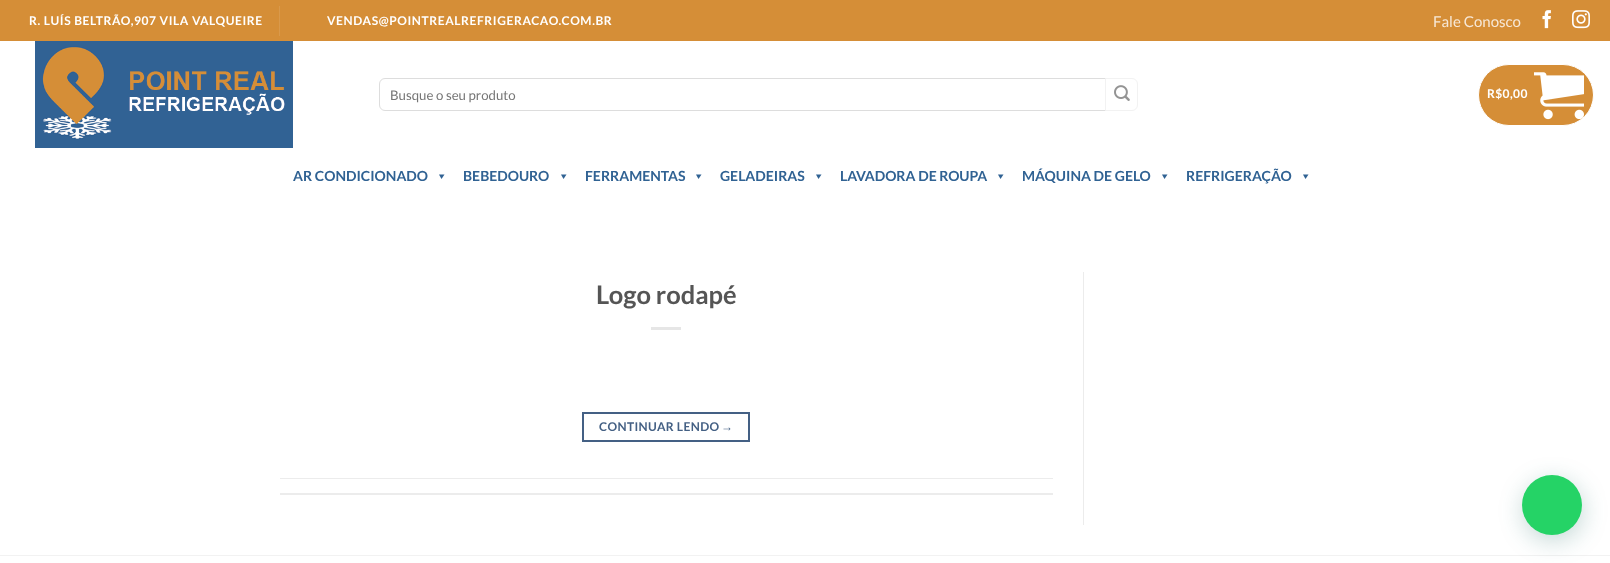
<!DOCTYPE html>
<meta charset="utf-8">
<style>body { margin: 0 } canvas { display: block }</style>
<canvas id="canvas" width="1610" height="563"></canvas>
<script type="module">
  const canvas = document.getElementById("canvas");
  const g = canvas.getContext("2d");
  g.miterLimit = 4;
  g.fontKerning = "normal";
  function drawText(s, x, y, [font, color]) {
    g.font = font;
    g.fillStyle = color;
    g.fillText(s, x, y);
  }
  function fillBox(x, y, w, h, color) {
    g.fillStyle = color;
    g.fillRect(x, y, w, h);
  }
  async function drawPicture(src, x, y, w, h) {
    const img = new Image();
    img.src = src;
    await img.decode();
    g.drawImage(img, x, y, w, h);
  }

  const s1 = ["bold 12px Lato", "#FFFFFF"];
  const s2 = ["15px Lato", "#F7E8D7"];
  const s3 = ["13.25px Lato", "#757575"];
  const s4 = ["bold 14px Lato", "#306293"];
  const s5 = ["bold 25.5px Lato", "#555555"];
  const s6 = ["bold 12px Lato", "#446084"];
  const s7 = ["bold 12px Liberation Sans", "#446084"];

  fillBox(0, 0, 1610, 563, "#FFFFFF");
  fillBox(0, 0, 1610, 41, "#D58E37");
  g.letterSpacing = "0.6px";
  drawText("R. LUÍS BELTRÃO,907 VILA VALQUEIRE", 29, 25, s1);
  fillBox(279, 6, 1, 30, "#D9994B");
  drawText("VENDAS@POINTREALREFRIGERACAO.COM.BR", 327, 25, s1);
  g.letterSpacing = "0px";
  drawText("Fale Conosco", 1433, 27, s2);
  await drawPicture("pic1.png", 1542, 10, 9, 19);
  await drawPicture("pic2.png", 1572, 10, 18, 19);
  await drawPicture("pic3.png", 35, 41, 258, 107);
  g.beginPath();
  g.roundRect(379.5, 78.5, 735, 32, 5.5);
  g.strokeStyle = "#DDDDDD";
  g.stroke();
  drawText("Busque o seu produto", 390, 100, s3);
  g.fillStyle = "#FFFFFF";
  g.beginPath();
  g.roundRect(1105.5, 78.5, 32, 32, [0, 5.5, 5.5, 0]);
  g.fill();
  g.strokeStyle = "#F2F2F2";
  g.stroke();
  await drawPicture("pic4.png", 1114, 85, 16, 16);
  g.fillStyle = "#D58E37";
  g.beginPath();
  g.roundRect(1478.5, 64.5, 115, 61, 30.5);
  g.fill();
  g.strokeStyle = "#FFFFFF";
  g.stroke();
  g.letterSpacing = "0.4px";
  drawText("R$0,00", 1487, 98, s1);
  await drawPicture("pic5.png", 1534, 72, 50, 48);
  g.letterSpacing = "0px";
  drawText("AR CONDICIONADO", 293, 181, s4);
  g.beginPath();
  g.moveTo(444.5, 174.5);
  g.lineTo(441.5, 179);
  g.lineTo(439, 174.5);
  g.closePath();
  g.fill();
  drawText("BEBEDOURO", 463, 181, s4);
  g.beginPath();
  g.moveTo(566.5, 174.5);
  g.lineTo(563.5, 179);
  g.lineTo(561, 174.5);
  g.closePath();
  g.fill();
  drawText("FERRAMENTAS", 585, 181, s4);
  g.beginPath();
  g.moveTo(701.5, 174.5);
  g.lineTo(698.5, 179);
  g.lineTo(696, 174.5);
  g.closePath();
  g.fill();
  drawText("GELADEIRAS", 720, 181, s4);
  g.beginPath();
  g.moveTo(821.5, 174.5);
  g.lineTo(818.5, 179);
  g.lineTo(816, 174.5);
  g.closePath();
  g.fill();
  drawText("LAVADORA DE ROUPA", 840, 181, s4);
  g.beginPath();
  g.moveTo(1003.5, 174.5);
  g.lineTo(1000.5, 179);
  g.lineTo(998, 174.5);
  g.closePath();
  g.fill();
  drawText("MÁQUINA DE GELO", 1022, 181, s4);
  g.beginPath();
  g.moveTo(1167.5, 174.5);
  g.lineTo(1164.5, 179);
  g.lineTo(1162, 174.5);
  g.closePath();
  g.fill();
  drawText("REFRIGERAÇÃO", 1186, 181, s4);
  g.beginPath();
  g.moveTo(1308.5, 174.5);
  g.lineTo(1305.5, 179);
  g.lineTo(1303, 174.5);
  g.closePath();
  g.fill();
  drawText("Logo rodapé", 596, 304, s5);
  fillBox(651, 327, 30, 3, "#E6E6E6");
  g.strokeStyle = "#446084";
  g.lineWidth = 2;
  g.strokeRect(583, 413, 166, 28);
  g.letterSpacing = "0.4px";
  drawText("CONTINUAR LENDO", 599, 431, s6);
  drawText("→", 721, 431, s7);
  fillBox(280, 478, 773, 1, "#ECECEC");
  fillBox(280, 493, 773, 2, "#ECECEC");
  fillBox(1083, 272, 1, 253, "#ECECEC");
  fillBox(0, 555, 1610, 1, "#F2F2F2");
  g.fillStyle = "rgba(7, 94, 84, 0.24)";
  g.filter = "blur(12px)";
  g.beginPath();
  g.roundRect(1523, 481, 60, 60, 30);
  g.fill();
  g.filter = "none";
  g.fillStyle = "#25D366";
  g.beginPath();
  g.arc(1552, 505, 30, 0, Math.PI * 2);
  g.fill();
</script>
